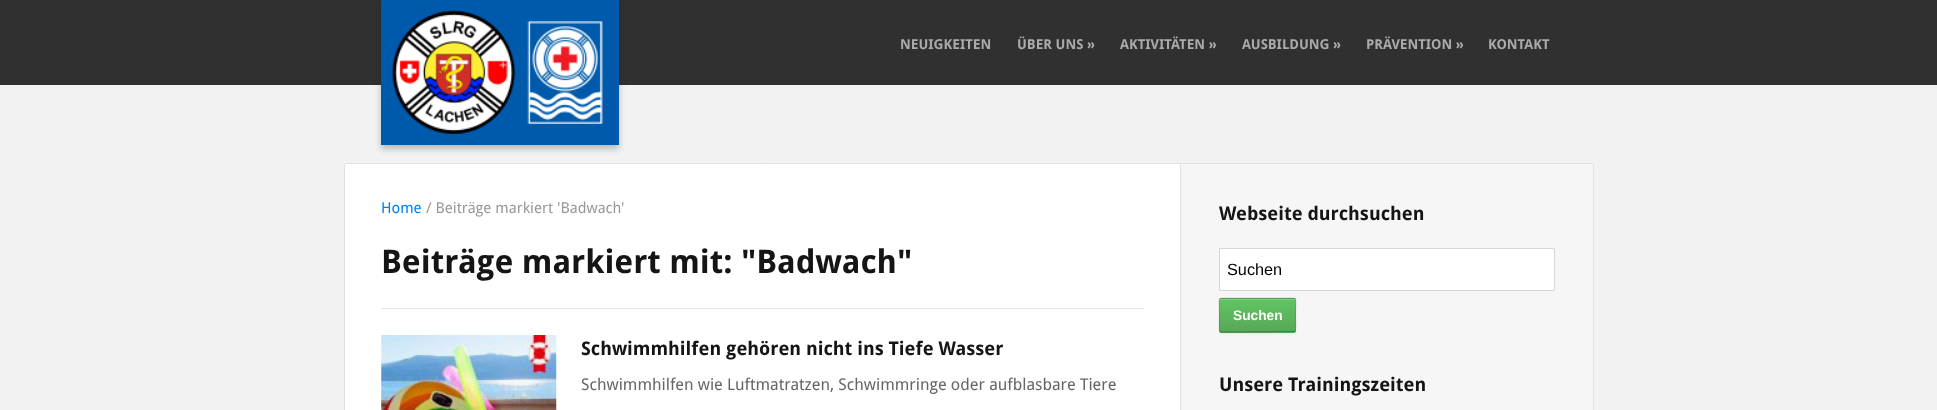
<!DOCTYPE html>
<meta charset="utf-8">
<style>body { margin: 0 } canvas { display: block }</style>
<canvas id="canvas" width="1937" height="410"></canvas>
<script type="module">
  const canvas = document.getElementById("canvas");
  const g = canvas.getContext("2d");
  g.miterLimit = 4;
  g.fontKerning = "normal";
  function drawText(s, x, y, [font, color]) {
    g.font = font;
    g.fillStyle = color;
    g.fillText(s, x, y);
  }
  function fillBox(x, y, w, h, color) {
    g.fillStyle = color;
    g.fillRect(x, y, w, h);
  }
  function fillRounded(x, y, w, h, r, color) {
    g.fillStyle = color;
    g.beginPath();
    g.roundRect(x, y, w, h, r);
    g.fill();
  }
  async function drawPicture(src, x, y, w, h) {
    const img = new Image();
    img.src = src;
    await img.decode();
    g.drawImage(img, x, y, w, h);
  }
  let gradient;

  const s1 = ["bold 13.75px Droid Sans", "#AAAAAA"];
  const s2 = ["15px Droid Sans", "#007FF0"];
  const s3 = ["15px Droid Sans", "#999999"];
  const s4 = ["bold 32.5px Droid Sans", "#151515"];
  const s5 = ["bold 18.75px Droid Sans", "#151515"];
  const s6 = ["16.25px Droid Sans", "#666666"];
  const s7 = ["16.25px Liberation Sans", "#000000"];
  const s8 = ["bold 13.75px Liberation Sans", "#FFFFFF"];

  fillBox(0, 0, 1937, 410, "#F2F2F2");
  fillBox(0, 0, 1937, 85, "#303030");
  g.fillStyle = "rgba(21, 21, 21, 0.25)";
  g.filter = "blur(3px)";
  g.beginPath();
  g.rect(381, 4, 238, 145);
  g.fill();
  g.filter = "none";
  fillBox(381, 0, 238, 145, "#005AAB");
  await drawPicture("pic1.png", 392, 10, 211, 125);
  drawText("NEUIGKEITEN", 900, 49, s1);
  drawText("ÜBER UNS »", 1017, 49, s1);
  drawText("AKTIVITÄTEN »", 1120, 49, s1);
  drawText("AUSBILDUNG »", 1242, 49, s1);
  drawText("PRÄVENTION »", 1366, 49, s1);
  drawText("KONTAKT", 1488, 49, s1);
  g.fillStyle = "#FFFFFF";
  g.beginPath();
  g.moveTo(346.5, 163.5);
  g.lineTo(1180.5, 163.5);
  g.lineTo(1180.5, 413.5);
  g.lineTo(346.5, 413.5);
  g.bezierCurveTo(345.5, 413.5, 344.5, 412.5, 344.5, 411.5);
  g.lineTo(344.5, 165.5);
  g.bezierCurveTo(344.5, 164.5, 345.5, 163.5, 346.5, 163.5);
  g.closePath();
  g.fill();
  g.strokeStyle = "#E1E1E1";
  g.stroke();
  drawText("Home", 381, 213, s2);
  drawText("/ Beiträge markiert 'Badwach'", 426, 213, s3);
  drawText("Beiträge markiert mit: \"Badwach\"", 381, 273, s4);
  fillBox(381, 308, 763, 1, "#E7E7E7");
  await drawPicture("pic2.png", 381, 335, 176, 75);
  drawText("Schwimmhilfen gehören nicht ins Tiefe Wasser", 581, 355, s5);
  drawText("Schwimmhilfen wie Luftmatratzen, Schwimmringe oder aufblasbare Tiere", 581, 390, s6);
  g.fillStyle = "#F6F6F6";
  g.beginPath();
  g.moveTo(1181, 164);
  g.lineTo(1592, 164);
  g.bezierCurveTo(1592.5, 164, 1593, 164.5, 1593, 165);
  g.lineTo(1593, 410);
  g.bezierCurveTo(1593, 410.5, 1592.5, 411, 1592, 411);
  g.lineTo(1181, 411);
  g.closePath();
  g.fill();
  fillBox(1181, 163, 412, 1, "#E1E1E1");
  fillBox(1593, 164, 1, 246, "#E1E1E1");
  drawText("Webseite durchsuchen", 1219, 220, s5);
  g.fillStyle = "#FFFFFF";
  g.beginPath();
  g.rect(1219.5, 248.5, 335, 42);
  g.fill();
  g.strokeStyle = "#D9D6D6";
  g.stroke();
  drawText("Suchen", 1227, 275, s7);
  g.fillStyle = "rgba(0, 0, 0, 0.05)";
  g.filter = "blur(1px)";
  g.beginPath();
  g.roundRect(1219, 299, 77, 35, 2.5);
  g.fill();
  g.filter = "none";
  fillRounded(1219, 298, 77, 35, 2.5, "#57A957");
  gradient = g.createLinearGradient(1258, 299, 1258, 331);
  gradient.addColorStop(0, "#62C462");
  gradient.addColorStop(1, "#57A957");
  g.fillStyle = gradient;
  g.fillRect(1219, 299, 77, 32);
  g.fillStyle = "#81D081";
  g.beginPath();
  g.moveTo(1221, 300);
  g.lineTo(1294, 300);
  g.lineTo(1295, 301);
  g.lineTo(1294, 299);
  g.lineTo(1221, 299);
  g.bezierCurveTo(1220, 299, 1220, 300, 1220, 301);
  g.closePath();
  g.fill();
  g.beginPath();
  g.moveTo(1295, 331.5);
  g.lineTo(1233.5, 332);
  g.lineTo(1221, 332);
  g.lineTo(1220, 331.5);
  g.strokeStyle = "rgba(0, 0, 0, 0.25)";
  g.lineWidth = 1.2;
  g.stroke();
  g.beginPath();
  g.moveTo(1220, 331.5);
  g.bezierCurveTo(1218.5, 330, 1219.5, 317.5, 1219.5, 315);
  g.bezierCurveTo(1219.5, 295, 1215, 298, 1233.5, 298);
  g.lineTo(1281.5, 298);
  g.bezierCurveTo(1300, 298, 1295.5, 295, 1295.5, 315);
  g.bezierCurveTo(1295.5, 317.5, 1296.5, 330, 1295, 331.5);
  g.strokeStyle = "rgba(0, 0, 0, 0.1)";
  g.stroke();
  drawText("Suchen", 1233, 320, s8);
  drawText("Unsere Trainingszeiten", 1219, 391, s5);
</script>
